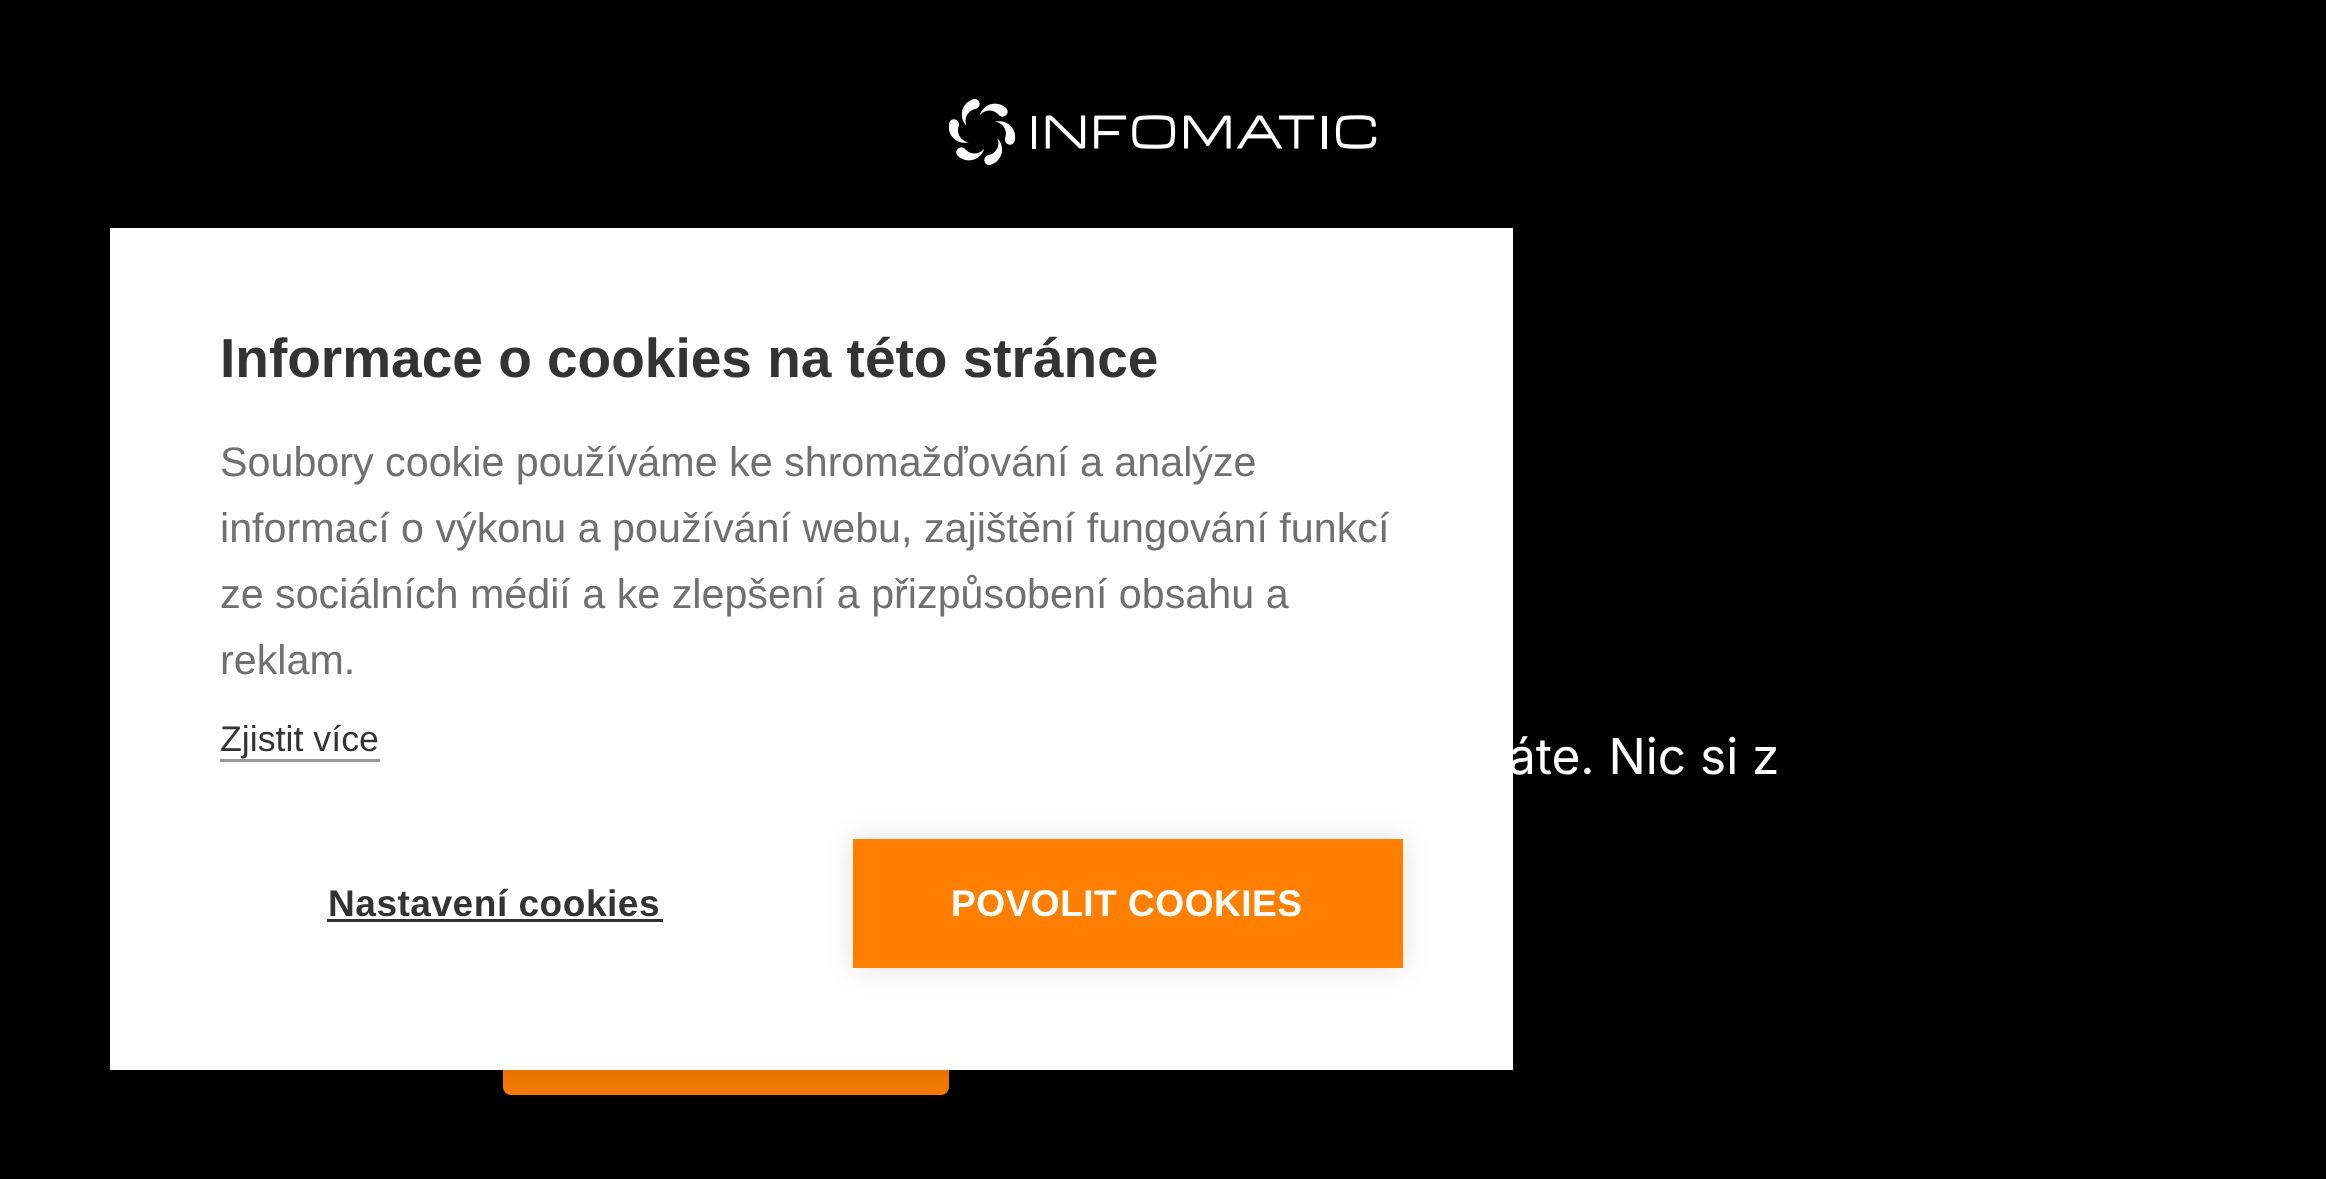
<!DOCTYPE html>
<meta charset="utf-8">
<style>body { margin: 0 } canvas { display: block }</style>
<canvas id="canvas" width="2326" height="1179"></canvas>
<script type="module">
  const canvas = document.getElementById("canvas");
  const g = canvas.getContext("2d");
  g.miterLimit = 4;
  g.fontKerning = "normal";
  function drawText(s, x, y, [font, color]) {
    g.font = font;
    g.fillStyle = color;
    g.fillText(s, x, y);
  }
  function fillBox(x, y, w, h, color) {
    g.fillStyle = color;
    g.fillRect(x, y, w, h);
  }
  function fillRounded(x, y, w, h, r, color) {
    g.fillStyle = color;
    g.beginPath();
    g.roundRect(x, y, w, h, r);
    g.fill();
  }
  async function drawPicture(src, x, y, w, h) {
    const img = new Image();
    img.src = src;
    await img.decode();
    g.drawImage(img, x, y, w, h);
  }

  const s1 = ["bold 55px Liberation Sans", "#333333"];
  const s2 = ["41.25px Liberation Sans", "#707070"];
  const s3 = ["35.75px Liberation Sans", "#333333"];
  const s4 = ["bold 37.1px Liberation Sans", "#333333"];
  const s5 = ["bold 37.1px Liberation Sans", "#FFFFFF"];
  const s6 = ["49.5px Inter", "#FFFFFF"];

  fillBox(0, 0, 2326, 1179, "#000000");
  await drawPicture("pic1.png", 949, 99, 428, 66);
  fillRounded(503, 974, 446, 121, 8, "#FF8000");
  g.fillStyle = "rgba(0, 0, 0, 0.2)";
  g.filter = "blur(27.5px)";
  g.beginPath();
  g.rect(110, 228, 1403, 842);
  g.fill();
  g.filter = "none";
  fillBox(110, 228, 1403, 842, "#FFFFFF");
  drawText("Informace o cookies na této stránce", 220, 377, s1);
  drawText("Soubory cookie používáme ke shromažďování a analýze", 220, 476, s2);
  drawText("informací o výkonu a používání webu, zajištění fungování funkcí", 220, 542, s2);
  drawText("ze sociálních médií a ke zlepšení a přizpůsobení obsahu a", 220, 608, s2);
  drawText("reklam.", 220, 674, s2);
  drawText("Zjistit více", 220, 751, s3);
  fillBox(220, 759, 160, 3, "#999999");
  g.letterSpacing = "0.5px";
  drawText("Nastavení cookies", 328, 916, s4);
  fillBox(327, 919, 336, 3, "#333333");
  g.fillStyle = "rgba(0, 0, 0, 0.12)";
  g.filter = "blur(14px)";
  g.beginPath();
  g.rect(853, 839, 550, 129);
  g.fill();
  g.filter = "none";
  fillBox(853, 839, 550, 129, "#FF8000");
  drawText("POVOLIT COOKIES", 951, 916, s5);
  g.letterSpacing = "0px";
  drawText("áte. Nic si z", 1508, 774, s6);
</script>
